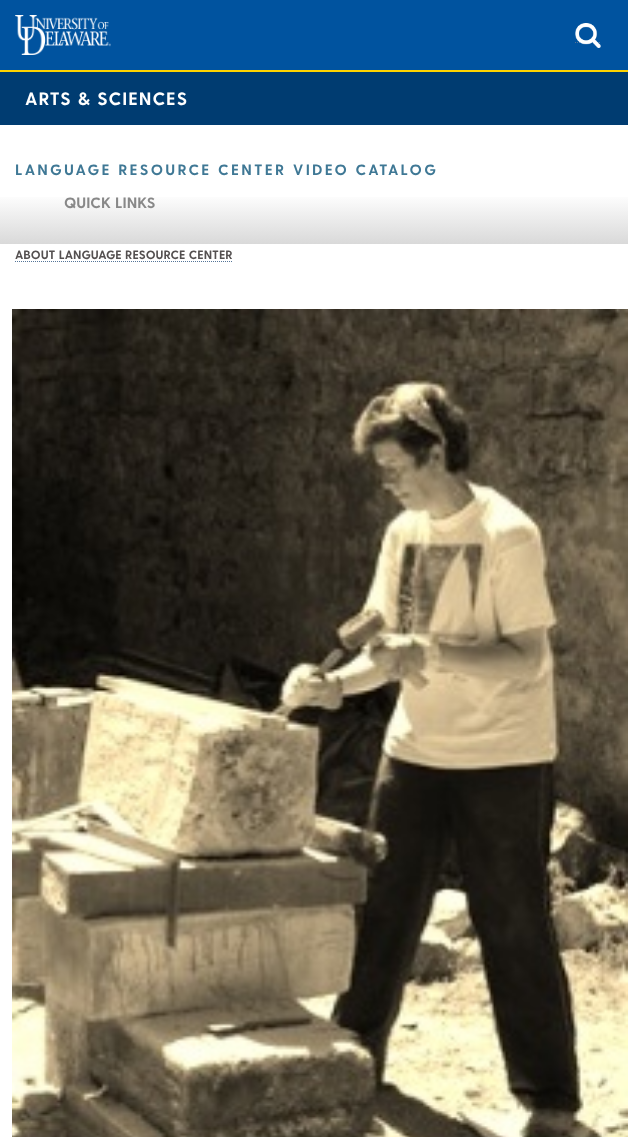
<!DOCTYPE html>
<meta charset="utf-8">
<style>body { margin: 0 } canvas { display: block }</style>
<canvas id="canvas" width="628" height="1137"></canvas>
<script type="module">
  const canvas = document.getElementById("canvas");
  const g = canvas.getContext("2d");
  g.miterLimit = 4;
  g.fontKerning = "normal";
  function drawText(s, x, y, [font, color]) {
    g.font = font;
    g.fillStyle = color;
    g.fillText(s, x, y);
  }
  function fillBox(x, y, w, h, color) {
    g.fillStyle = color;
    g.fillRect(x, y, w, h);
  }
  async function drawPicture(src, x, y, w, h) {
    const img = new Image();
    img.src = src;
    await img.decode();
    g.drawImage(img, x, y, w, h);
  }
  let gradient;

  const s1 = ["bold 18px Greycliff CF", "#FFFFFF"];
  const s2 = ["bold 15px Greycliff CF", "#3F7895"];
  const s3 = ["bold 15px Greycliff CF", "#888888"];
  const s4 = ["bold 12px Greycliff CF", "#545050"];

  fillBox(0, 0, 628, 1137, "#FFFFFF");
  fillBox(0, 0, 628, 70, "#00539F");
  fillBox(0, 70, 628, 2, "#FFD300");
  await drawPicture("pic1.png", 15, 15, 96, 40);
  g.beginPath();
  g.moveTo(575, 42.5);
  g.lineTo(601, 42.5);
  g.strokeStyle = "#557598";
  g.setLineDash([1, 1]);
  g.stroke();
  await drawPicture("pic2.png", 575, 23, 26, 25);
  fillBox(0, 72, 628, 53, "#003C71");
  g.letterSpacing = "1px";
  drawText("ARTS & SCIENCES", 25, 105, s1);
  gradient = g.createLinearGradient(314, 145, 314, 244);
  gradient.addColorStop(0.49, "#FFFFFF");
  gradient.addColorStop(1, "#D9D9D9");
  g.fillStyle = gradient;
  g.fillRect(0, 197, 628, 47);
  g.letterSpacing = "2.25px";
  drawText("LANGUAGE RESOURCE CENTER VIDEO CATALOG", 15, 175, s2);
  g.letterSpacing = "0px";
  drawText("QUICK LINKS", 64, 208, s3);
  drawText("ABOUT LANGUAGE RESOURCE CENTER", 15, 259, s4);
  g.beginPath();
  g.moveTo(15, 261.5);
  g.lineTo(233, 261.5);
  g.stroke();
  await drawPicture("pic3.png", 12, 309, 616, 828);
</script>
